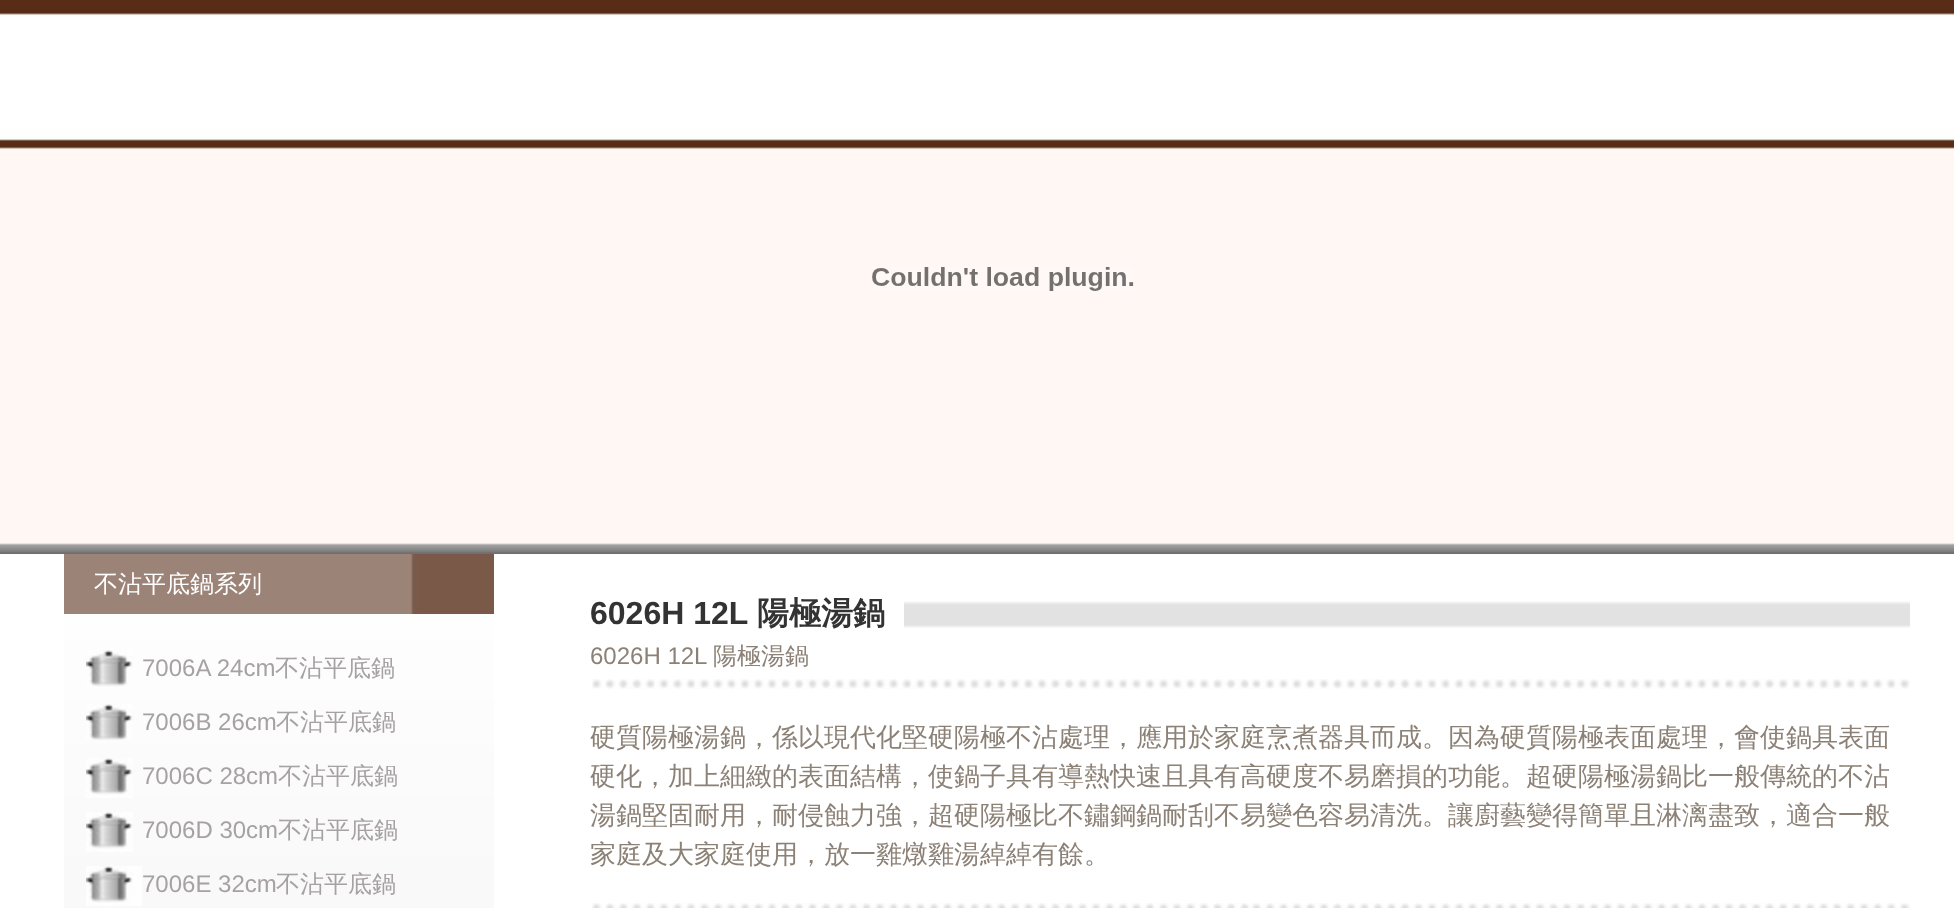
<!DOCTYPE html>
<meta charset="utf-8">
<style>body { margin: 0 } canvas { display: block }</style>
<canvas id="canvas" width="1954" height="908"></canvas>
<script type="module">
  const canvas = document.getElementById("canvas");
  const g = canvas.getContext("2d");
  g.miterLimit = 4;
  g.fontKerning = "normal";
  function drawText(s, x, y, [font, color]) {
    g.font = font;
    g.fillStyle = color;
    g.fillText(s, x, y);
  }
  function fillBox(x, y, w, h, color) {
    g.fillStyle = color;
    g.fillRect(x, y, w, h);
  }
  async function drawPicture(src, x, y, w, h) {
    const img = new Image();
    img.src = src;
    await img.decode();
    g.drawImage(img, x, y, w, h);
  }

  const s1 = ["500 24px WenQuanYi Zen Hei", "#FFFFFF"];
  const s2 = ["24px Liberation Sans", "#A6A2A3"];
  const s3 = ["500 24px WenQuanYi Zen Hei", "#A6A2A3"];
  const s4 = ["bold 32px Liberation Sans", "#333333"];
  const s5 = ["bold 32px WenQuanYi Zen Hei", "#333333"];
  const s6 = ["24px Liberation Sans", "#8C8176"];
  const s7 = ["500 24px WenQuanYi Zen Hei", "#8C8176"];
  const s8 = ["500 26px WenQuanYi Zen Hei", "#8C8176"];

  fillBox(0, 0, 1954, 908, "#FFFFFF");
  await drawPicture("pic1.png", 0, 0, 1954, 554);
  await drawPicture("pic2.png", 872, 267, 262, 24);
  await drawPicture("pic3.png", 64, 614, 430, 294);
  await drawPicture("pic4.png", 64, 554, 430, 60);
  drawText("不沾平底鍋系列", 94, 592, s1);
  await drawPicture("pic5.png", 86, 650, 47, 37);
  drawText("7006A 24cm", 142, 676, s2);
  drawText("不沾平底鍋", 275, 676, s3);
  await drawPicture("pic6.png", 86, 704, 47, 36);
  drawText("7006B 26cm", 142, 730, s2);
  drawText("不沾平底鍋", 276, 730, s3);
  await drawPicture("pic7.png", 86, 758, 47, 40);
  drawText("7006C 28cm", 142, 784, s2);
  drawText("不沾平底鍋", 278, 784, s3);
  await drawPicture("pic7.png", 86, 812, 47, 40);
  drawText("7006D 30cm", 142, 838, s2);
  drawText("不沾平底鍋", 278, 838, s3);
  await drawPicture("pic8.png", 86, 866, 56, 40);
  drawText("7006E 32cm", 142, 892, s2);
  drawText("不沾平底鍋", 276, 892, s3);
  await drawPicture("pic9.png", 904, 601, 1006, 27);
  drawText("6026H 12L", 590, 624, s4);
  drawText("陽極湯鍋", 757, 624, s5);
  drawText("6026H 12L", 590, 664, s6);
  drawText("陽極湯鍋", 713, 664, s7);
  await drawPicture("pic10.png", 592, 679, 1318, 10);
  drawText("硬質陽極湯鍋，係以現代化堅硬陽極不沾處理，應用於家庭烹煮器具而成。因為硬質陽極表面處理，會使鍋具表面", 590, 746, s8);
  drawText("硬化，加上細緻的表面結構，使鍋子具有導熱快速且具有高硬度不易磨損的功能。超硬陽極湯鍋比一般傳統的不沾", 590, 785, s8);
  drawText("湯鍋堅固耐用，耐侵蝕力強，超硬陽極比不鏽鋼鍋耐刮不易變色容易清洗。讓廚藝變得簡單且淋漓盡致，適合一般", 590, 824, s8);
  drawText("家庭及大家庭使用，放一雞燉雞湯綽綽有餘。", 590, 863, s8);
  await drawPicture("pic11.png", 592, 903, 1318, 5);
</script>
